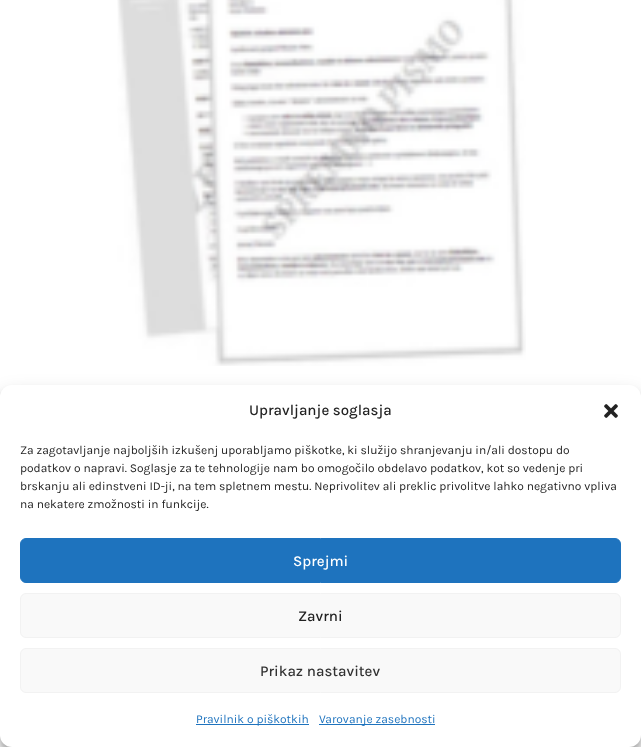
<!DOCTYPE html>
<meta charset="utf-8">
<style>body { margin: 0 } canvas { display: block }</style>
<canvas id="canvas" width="641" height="747"></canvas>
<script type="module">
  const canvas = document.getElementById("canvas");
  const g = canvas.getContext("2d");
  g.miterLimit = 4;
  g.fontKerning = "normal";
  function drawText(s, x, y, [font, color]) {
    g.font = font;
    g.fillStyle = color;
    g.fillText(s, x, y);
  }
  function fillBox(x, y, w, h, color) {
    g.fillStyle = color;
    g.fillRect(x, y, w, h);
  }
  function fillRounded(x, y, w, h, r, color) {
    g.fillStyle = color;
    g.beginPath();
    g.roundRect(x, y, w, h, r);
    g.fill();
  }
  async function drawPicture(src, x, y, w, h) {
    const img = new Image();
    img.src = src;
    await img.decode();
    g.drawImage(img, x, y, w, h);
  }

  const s1 = ["500 15px Karla", "#222222"];
  const s2 = ["12px Karla", "#222222"];
  const s3 = ["500 15px Karla", "#FFFFFF"];
  const s4 = ["500 15px Karla", "#333333"];
  const s5 = ["12px Karla", "#1E73BE"];

  fillBox(0, 0, 641, 747, "#FFFFFF");
  await drawPicture("pic1.png", 117, 0, 409, 366);
  g.fillStyle = "rgba(0, 0, 0, 0.23)";
  g.filter = "blur(3px)";
  g.beginPath();
  g.roundRect(0, 391, 641, 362, 12);
  g.fill();
  g.filter = "none";
  g.fillStyle = "rgba(0, 0, 0, 0.19)";
  g.filter = "blur(10px)";
  g.beginPath();
  g.roundRect(0, 395, 641, 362, 12);
  g.fill();
  g.filter = "none";
  fillRounded(0, 385, 641, 362, 12, "#FFFFFF");
  drawText("Upravljanje soglasja", 249, 415, s1);
  await drawPicture("pic2.png", 604, 404, 14, 14);
  drawText("Za zagotavljanje najboljših izkušenj uporabljamo piškotke, ki služijo shranjevanju in/ali dostopu do", 20, 454, s2);
  drawText("podatkov o napravi. Soglasje za te tehnologije nam bo omogočilo obdelavo podatkov, kot so vedenje pri", 20, 472, s2);
  drawText("brskanju ali edinstveni ID-ji, na tem spletnem mestu. Neprivolitev ali preklic privolitve lahko negativno vpliva", 20, 490, s2);
  drawText("na nekatere zmožnosti in funkcije.", 20, 508, s2);
  g.fillStyle = "#1E73BE";
  g.beginPath();
  g.roundRect(20.5, 538.5, 600, 44, 5.5);
  g.fill();
  g.strokeStyle = "#1E73BE";
  g.stroke();
  drawText("Sprejmi", 293, 566, s3);
  g.fillStyle = "#F9F9F9";
  g.beginPath();
  g.roundRect(20.5, 593.5, 600, 44, 5.5);
  g.fill();
  g.strokeStyle = "#F2F2F2";
  g.stroke();
  drawText("Zavrni", 298, 621, s1);
  g.fillStyle = "#F9F9F9";
  g.beginPath();
  g.roundRect(20.5, 648.5, 600, 44, 5.5);
  g.fill();
  g.stroke();
  drawText("Prikaz nastavitev", 260, 676, s4);
  fillBox(196, 724, 113, 1, "#1E73BE");
  drawText("Pravilnik o piškotkih", 196, 723, s5);
  fillBox(319, 724, 116, 1, "#1E73BE");
  drawText("Varovanje zasebnosti", 319, 723, s5);
</script>
